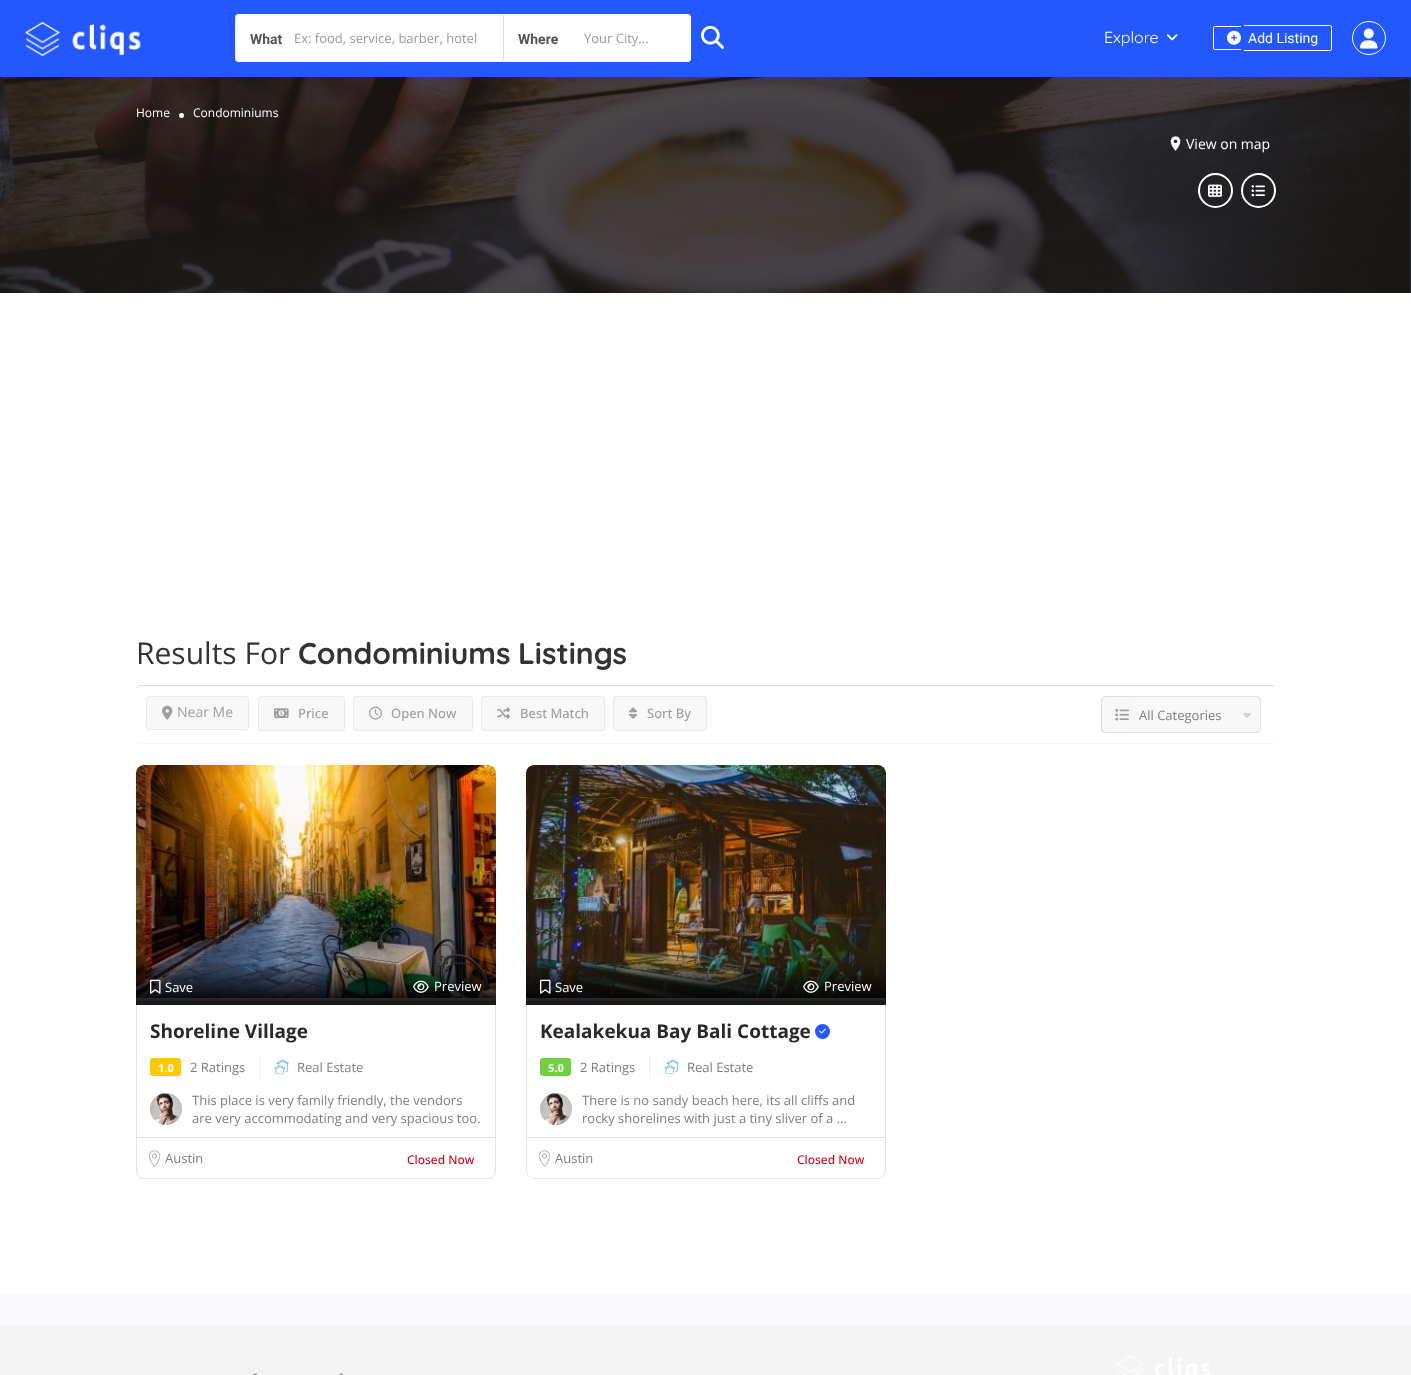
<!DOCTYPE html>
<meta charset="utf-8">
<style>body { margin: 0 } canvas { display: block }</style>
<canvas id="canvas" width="1411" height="1375"></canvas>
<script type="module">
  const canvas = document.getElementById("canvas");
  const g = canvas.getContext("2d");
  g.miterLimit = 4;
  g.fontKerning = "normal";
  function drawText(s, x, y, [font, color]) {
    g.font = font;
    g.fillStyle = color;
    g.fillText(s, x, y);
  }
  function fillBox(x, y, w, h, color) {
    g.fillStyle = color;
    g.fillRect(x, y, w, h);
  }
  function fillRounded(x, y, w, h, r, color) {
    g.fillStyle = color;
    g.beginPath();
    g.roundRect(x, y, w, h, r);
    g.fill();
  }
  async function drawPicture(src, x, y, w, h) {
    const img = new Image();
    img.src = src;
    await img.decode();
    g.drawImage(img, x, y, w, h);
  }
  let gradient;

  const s1 = ["bold 14px Roboto", "#555555"];
  const s2 = ["13px Open Sans", "#999999"];
  const s3 = ["16px Quicksand", "#FFFFFF"];
  const s4 = ["14px Roboto", "#FFFFFF"];
  const s5 = ["12px Open Sans", "#FFFFFF"];
  const s6 = ["14px Open Sans", "#FFFFFF"];
  const s7 = ["30px Open Sans", "#333333"];
  const s8 = ["bold 30px Quicksand", "#333333"];
  const s9 = ["14px Open Sans", "#9F9F9F"];
  const s10 = ["500 13px Open Sans", "#9F9F9F"];
  const s11 = ["13px Open Sans", "#7F7F7F"];
  const s12 = ["13px Open Sans", "#FFFFFF"];
  const s13 = ["bold 19px Open Sans", "#292929"];
  const s14 = ["bold 11px Open Sans", "#FFFFFF"];
  const s15 = ["500 12px Open Sans", "#D0021B"];
  const s16 = ["14px Open Sans", "#797979"];

  fillBox(0, 0, 1411, 1375, "#FFFFFF");
  fillBox(0, 0, 1411, 77, "#2458FF");
  await drawPicture("pic1.png", 25, 22, 116, 35);
  g.fillStyle = "#FFFFFF";
  g.beginPath();
  g.roundRect(235, 14, 268, 48, [4, 0, 0, 4]);
  g.fill();
  g.beginPath();
  g.moveTo(239, 14);
  g.lineTo(236, 15);
  g.lineTo(237, 16);
  g.lineTo(239, 15);
  g.lineTo(502, 15);
  g.lineTo(503, 14);
  g.closePath();
  g.fill();
  g.beginPath();
  g.moveTo(503, 62);
  g.lineTo(502, 61);
  g.lineTo(239, 61);
  g.lineTo(237, 60);
  g.lineTo(236, 61);
  g.lineTo(239, 62);
  g.closePath();
  g.fill();
  g.fillStyle = "#DEDEDE";
  g.beginPath();
  g.moveTo(235, 18);
  g.lineTo(235, 58);
  g.bezierCurveTo(235, 59, 236, 60, 236, 61);
  g.lineTo(237, 60);
  g.bezierCurveTo(235, 59, 235, 17, 237, 16);
  g.lineTo(236, 15);
  g.closePath();
  g.fill();
  drawText("What", 250, 44, s1);
  drawText("Ex: food, service, barber, hotel", 294, 43, s2);
  g.fillStyle = "#FFFFFF";
  g.beginPath();
  g.roundRect(503, 14, 188, 48, [0, 4, 4, 0]);
  g.fill();
  g.beginPath();
  g.moveTo(503, 14);
  g.lineTo(504, 15);
  g.lineTo(687, 15);
  g.lineTo(689, 16);
  g.lineTo(690, 15);
  g.lineTo(687, 14);
  g.closePath();
  g.fill();
  g.beginPath();
  g.moveTo(691, 58);
  g.lineTo(691, 18);
  g.bezierCurveTo(691, 17, 690, 16, 690, 15);
  g.lineTo(689, 16);
  g.bezierCurveTo(691, 17, 691, 59, 689, 60);
  g.lineTo(690, 61);
  g.closePath();
  g.fill();
  g.beginPath();
  g.moveTo(687, 62);
  g.lineTo(690, 61);
  g.lineTo(689, 60);
  g.lineTo(687, 61);
  g.lineTo(504, 61);
  g.lineTo(503, 62);
  g.closePath();
  g.fill();
  g.fillStyle = "#DEDEDE";
  g.beginPath();
  g.moveTo(503, 14);
  g.lineTo(503, 62);
  g.lineTo(504, 61);
  g.lineTo(504, 15);
  g.closePath();
  g.fill();
  drawText("Where", 518, 44, s1);
  fillBox(689, 15, 1, 46, "#FFFFFF");
  drawText("Your City...", 584, 43, s2);
  await drawPicture("pic2.png", 701, 25, 23, 24);
  drawText("Explore", 1104, 43, s3);
  await drawPicture("pic3.png", 1166, 34, 12, 7);
  fillBox(1214, 26, 27, 1, "#FFFFFF");
  fillBox(1214, 49, 27, 1, "#FFFFFF");
  fillBox(1213, 27, 1, 22, "#FFFFFF");
  fillBox(1244, 25, 87, 1, "#FFFFFF");
  fillBox(1331, 26, 1, 24, "#FFFFFF");
  fillBox(1244, 50, 87, 1, "#FFFFFF");
  await drawPicture("pic4.png", 1227, 30, 14, 15);
  drawText("Add Listing", 1248, 43, s4);
  g.beginPath();
  g.arc(1369, 38, 16.5, 0, Math.PI * 2);
  g.strokeStyle = "#FFFFFF";
  g.stroke();
  await drawPicture("pic5.png", 1360, 28, 18, 21);
  await drawPicture("pic6.png", 0, 77, 1411, 216);
  drawText("Home", 136, 117, s5);
  g.beginPath();
  g.arc(181.5, 115.5, 2.5, 0, Math.PI * 2);
  g.fill();
  drawText("Condominiums", 193, 117, s5);
  await drawPicture("pic7.png", 1170, 136, 11, 15);
  drawText("View on map", 1186, 149, s6);
  g.beginPath();
  g.arc(1215.5, 190.5, 16.5, 0, Math.PI * 2);
  g.lineWidth = 2;
  g.stroke();
  await drawPicture("pic8.png", 1208, 184, 14, 13);
  g.beginPath();
  g.arc(1258.5, 190.5, 16.5, 0, Math.PI * 2);
  g.stroke();
  await drawPicture("pic9.png", 1251, 185, 14, 12);
  drawText("Results For", 136, 664, s7);
  drawText("Condominiums", 298, 664, s8);
  drawText("Listings", 518, 664, s8);
  g.fillStyle = "#DEDEDE";
  g.beginPath();
  g.moveTo(141, 685);
  g.bezierCurveTo(138, 685, 136, 687, 136, 690);
  g.bezierCurveTo(136, 688, 138, 686, 141, 686);
  g.lineTo(1271, 686);
  g.bezierCurveTo(1274, 686, 1276, 688, 1276, 690);
  g.bezierCurveTo(1276, 687, 1274, 685, 1271, 685);
  g.closePath();
  g.fill();
  g.fillStyle = "#F6F6F6";
  g.beginPath();
  g.moveTo(1271, 744);
  g.bezierCurveTo(1274, 744, 1276, 742, 1276, 739);
  g.bezierCurveTo(1276, 741, 1274, 743, 1271, 743);
  g.lineTo(141, 743);
  g.bezierCurveTo(138, 743, 136, 741, 136, 739);
  g.bezierCurveTo(136, 742, 138, 744, 141, 744);
  g.closePath();
  g.fill();
  g.fillStyle = "#F8F8F8";
  g.beginPath();
  g.roundRect(146.5, 696.5, 102, 33, 2.5);
  g.fill();
  g.strokeStyle = "#EAEAEA";
  g.lineWidth = 1;
  g.stroke();
  await drawPicture("pic10.png", 162, 705, 11, 15);
  drawText("Near Me", 177, 717, s9);
  g.fillStyle = "#F8F8F8";
  g.beginPath();
  g.roundRect(258.5, 696.5, 86, 34, 2.5);
  g.fill();
  g.stroke();
  await drawPicture("pic11.png", 274, 708, 15, 10);
  drawText("Price", 298, 718, s10);
  g.fillStyle = "#F8F8F8";
  g.beginPath();
  g.roundRect(353.5, 696.5, 119, 34, 2.5);
  g.fill();
  g.stroke();
  await drawPicture("pic12.png", 369, 706, 13, 14);
  drawText("Open Now", 391, 718, s10);
  g.fillStyle = "#F8F8F8";
  g.beginPath();
  g.roundRect(481.5, 696.5, 123, 34, 2.5);
  g.fill();
  g.stroke();
  await drawPicture("pic13.png", 497, 707, 13, 12);
  drawText("Best Match", 520, 718, s10);
  g.fillStyle = "#F8F8F8";
  g.beginPath();
  g.roundRect(613.5, 696.5, 93, 34, 2.5);
  g.fill();
  g.stroke();
  await drawPicture("pic14.png", 629, 707, 9, 12);
  drawText("Sort By", 647, 718, s10);
  g.fillStyle = "#F8F8F8";
  g.beginPath();
  g.roundRect(1101, 696, 30, 37, [5, 0, 0, 5]);
  g.fill();
  g.fillStyle = "#DEDEDE";
  g.beginPath();
  g.moveTo(1106, 696);
  g.lineTo(1131, 696);
  g.lineTo(1131, 733);
  g.lineTo(1106, 733);
  g.bezierCurveTo(1103, 733, 1101, 731, 1101, 728);
  g.lineTo(1101, 701);
  g.bezierCurveTo(1101, 698, 1103, 696, 1106, 696);
  g.closePath();
  g.moveTo(1106, 697);
  g.lineTo(1131, 697);
  g.lineTo(1131, 732);
  g.lineTo(1106, 732);
  g.bezierCurveTo(1104, 732, 1102, 730, 1102, 728);
  g.lineTo(1102, 701);
  g.bezierCurveTo(1102, 699, 1104, 697, 1106, 697);
  g.closePath();
  g.fill("evenodd");
  await drawPicture("pic15.png", 1115, 709, 14, 12);
  g.fillStyle = "#F8F8F8";
  g.beginPath();
  g.roundRect(1131, 696, 130, 37, [0, 5, 5, 0]);
  g.fill();
  g.fillStyle = "#E3E3E3";
  g.beginPath();
  g.moveTo(1131, 696);
  g.lineTo(1256, 696);
  g.bezierCurveTo(1259, 696, 1261, 698, 1261, 701);
  g.lineTo(1261, 728);
  g.bezierCurveTo(1261, 731, 1259, 733, 1256, 733);
  g.lineTo(1131, 733);
  g.closePath();
  g.moveTo(1131, 697);
  g.lineTo(1256, 697);
  g.bezierCurveTo(1258, 697, 1260, 699, 1260, 701);
  g.lineTo(1260, 728);
  g.bezierCurveTo(1260, 730, 1258, 732, 1256, 732);
  g.lineTo(1131, 732);
  g.closePath();
  g.fill("evenodd");
  drawText("All Categories", 1139, 720, s11);
  await drawPicture("pic16.png", 1243, 713, 8, 5);
  g.beginPath();
  g.roundRect(136.5, 765.5, 359, 413, 7.5);
  g.strokeStyle = "#E3E3E3";
  g.stroke();
  await drawPicture("pic17.png", 136, 765, 360, 233);
  gradient = g.createLinearGradient(316, 1005, 316, 959);
  gradient.addColorStop(0.08, "rgba(0, 0, 0, 0.9)");
  gradient.addColorStop(0.94, "rgba(0, 0, 0, 0)");
  g.fillStyle = gradient;
  g.fillRect(136, 963, 360, 42);
  await drawPicture("pic18.png", 150, 979, 11, 15);
  drawText("Save", 165, 992, s12);
  await drawPicture("pic19.png", 413, 980, 16, 13);
  drawText("Preview", 434, 991, s12);
  drawText("Shoreline Village", 150, 1038, s13);
  fillBox(259, 1055, 1, 24, "#F1F1F1");
  fillRounded(150, 1058, 31, 18, 3, "#FFC800");
  drawText("1.0", 158, 1072, s14);
  drawText("2 Ratings", 190, 1072, s11);
  await drawPicture("pic20.png", 274, 1059, 15, 15);
  drawText("Real Estate", 297, 1072, s11);
  g.fillStyle = "#EBEBEB";
  g.beginPath();
  g.arc(166, 1109, 16, 0, Math.PI * 2);
  g.fill();
  await drawPicture("pic21.png", 150, 1093, 32, 32);
  drawText("This place is very family friendly, the vendors", 192, 1105, s11);
  drawText("are very accommodating and very spacious too.", 192, 1123, s11);
  fillBox(137, 1137, 358, 1, "#DEDEDE");
  await drawPicture("pic22.png", 148, 1150, 13, 17);
  drawText("Austin", 165, 1163, s11);
  drawText("Closed Now", 407, 1164, s15);
  g.beginPath();
  g.roundRect(526.5, 765.5, 359, 413, 7.5);
  g.stroke();
  await drawPicture("pic23.png", 526, 765, 360, 233);
  gradient = g.createLinearGradient(706, 1005, 706, 959);
  gradient.addColorStop(0.08, "rgba(0, 0, 0, 0.9)");
  gradient.addColorStop(0.94, "rgba(0, 0, 0, 0)");
  g.fillStyle = gradient;
  g.fillRect(526, 963, 360, 42);
  await drawPicture("pic24.png", 540, 979, 11, 15);
  drawText("Save", 555, 992, s12);
  await drawPicture("pic25.png", 803, 980, 16, 13);
  drawText("Preview", 824, 991, s12);
  drawText("Kealakekua Bay Bali Cottage", 540, 1038, s13);
  g.fillStyle = "#2458FF";
  g.beginPath();
  g.arc(822.5, 1031.5, 7.5, 0, Math.PI * 2);
  g.fill();
  await drawPicture("pic26.png", 819, 1028, 7, 6);
  fillBox(649, 1055, 1, 24, "#F1F1F1");
  fillRounded(540, 1058, 31, 18, 3, "#73CF42");
  drawText("5.0", 548, 1072, s14);
  drawText("2 Ratings", 580, 1072, s11);
  await drawPicture("pic20.png", 664, 1059, 15, 15);
  drawText("Real Estate", 687, 1072, s11);
  g.fillStyle = "#EBEBEB";
  g.beginPath();
  g.arc(556, 1109, 16, 0, Math.PI * 2);
  g.fill();
  await drawPicture("pic21.png", 540, 1093, 32, 32);
  drawText("There is no sandy beach here, its all cliffs and", 582, 1105, s11);
  drawText("rocky shorelines with just a tiny sliver of a ...", 582, 1123, s11);
  fillBox(527, 1137, 358, 1, "#DEDEDE");
  await drawPicture("pic22.png", 538, 1150, 13, 17);
  drawText("Austin", 555, 1163, s11);
  drawText("Closed Now", 797, 1164, s15);
  fillBox(0, 1294, 1411, 31, "#F9F9FB");
  fillBox(0, 1325, 1411, 50, "#F4F4F5");
  drawText("-", 253, 1378, s16);
  drawText("-", 339, 1378, s16);
  await drawPicture("pic27.png", 1116, 1355, 94, 20);
</script>
